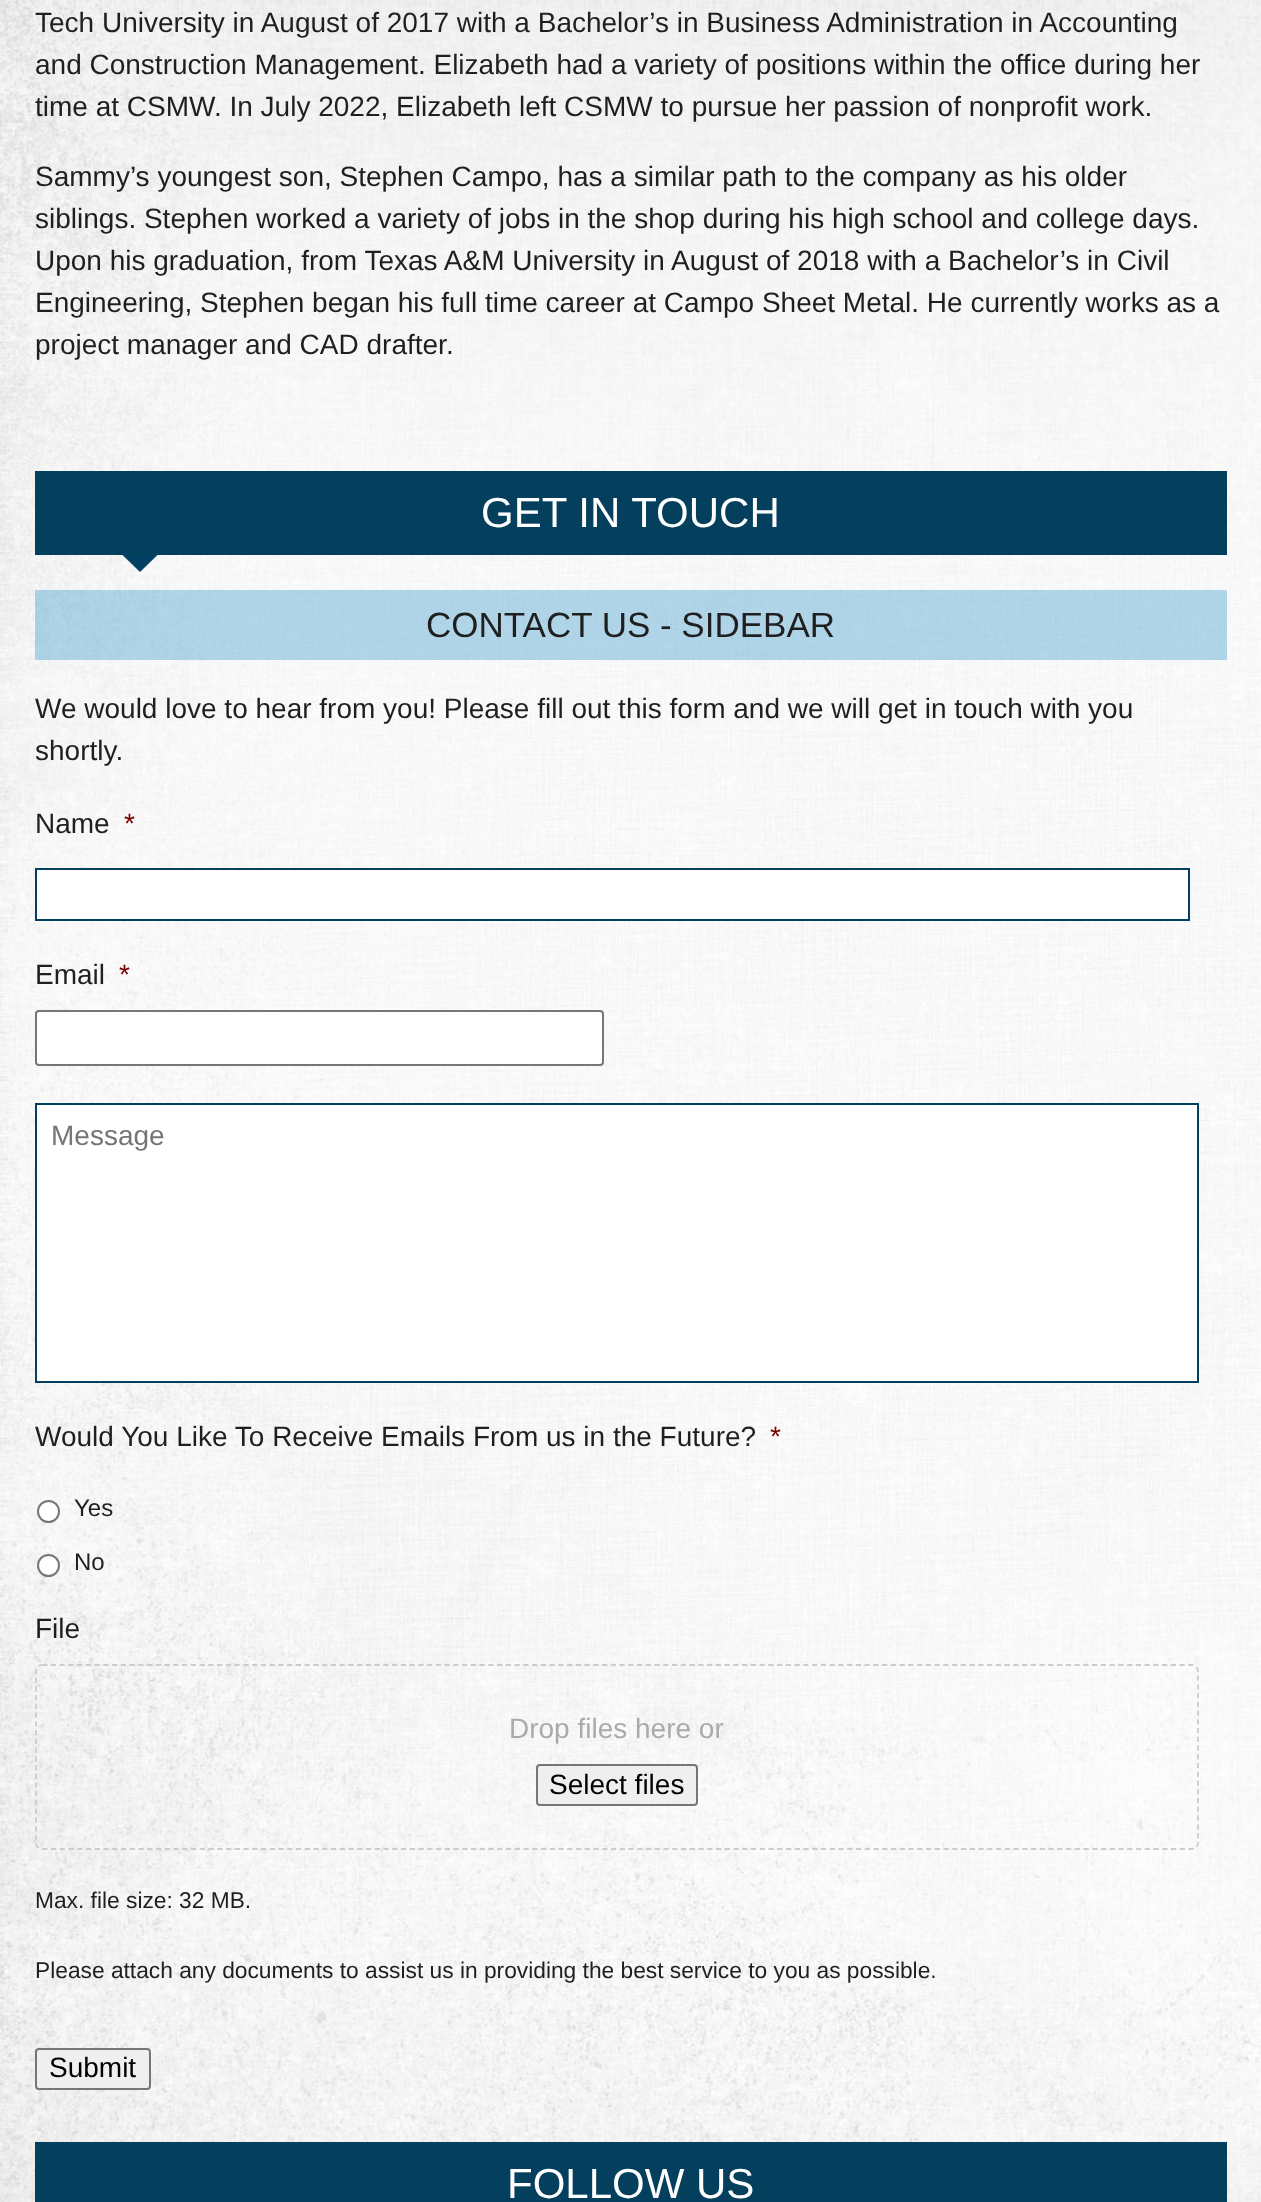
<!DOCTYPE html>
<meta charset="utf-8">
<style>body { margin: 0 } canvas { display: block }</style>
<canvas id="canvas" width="1261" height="2202"></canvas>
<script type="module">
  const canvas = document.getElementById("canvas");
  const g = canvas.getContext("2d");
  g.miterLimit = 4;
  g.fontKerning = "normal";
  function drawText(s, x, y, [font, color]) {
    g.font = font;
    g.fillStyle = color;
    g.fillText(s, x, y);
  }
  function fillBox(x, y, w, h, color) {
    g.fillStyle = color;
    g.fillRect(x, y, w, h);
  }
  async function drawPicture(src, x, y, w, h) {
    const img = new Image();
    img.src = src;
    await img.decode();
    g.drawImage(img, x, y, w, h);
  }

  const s1 = ["28px Liberation Sans", "#1F1F1F"];
  const s2 = ["42px Liberation Sans", "#FFFFFF"];
  const s3 = ["35px Liberation Sans", "#1F1F1F"];
  const s4 = ["28px Liberation Sans", "#790000"];
  const s5 = ["28px Liberation Sans", "#757575"];
  const s6 = ["24px Liberation Sans", "#1F1F1F"];
  const s7 = ["28px Liberation Sans", "#AAAAAA"];
  const s8 = ["28px Liberation Sans", "#000000"];
  const s9 = ["22.75px Liberation Sans", "#1F1F1F"];

  fillBox(0, 0, 1261, 2202, "#FFFFFF");
  await drawPicture("pic1.png", 0, 0, 1261, 2202);
  drawText("Tech University in August of 2017 with a Bachelor’s in Business Administration in Accounting", 35, 32, s1);
  drawText("and Construction Management. Elizabeth had a variety of positions within the office during her", 35, 74, s1);
  drawText("time at CSMW. In July 2022, Elizabeth left CSMW to pursue her passion of nonprofit work.", 35, 116, s1);
  drawText("Sammy’s youngest son, Stephen Campo, has a similar path to the company as his older", 35, 186, s1);
  drawText("siblings. Stephen worked a variety of jobs in the shop during his high school and college days.", 35, 228, s1);
  drawText("Upon his graduation, from Texas A&M University in August of 2018 with a Bachelor’s in Civil", 35, 270, s1);
  drawText("Engineering, Stephen began his full time career at Campo Sheet Metal. He currently works as a", 35, 312, s1);
  drawText("project manager and CAD drafter.", 35, 354, s1);
  fillBox(35, 471, 1192, 84, "#04405E");
  drawText("GET IN TOUCH", 481, 527, s2);
  g.fillStyle = "#034164";
  g.beginPath();
  g.moveTo(122.5, 555);
  g.lineTo(157.5, 555);
  g.lineTo(140, 572);
  g.closePath();
  g.fill();
  fillBox(35, 590, 1192, 70, "rgba(8, 130, 191, 0.3)");
  drawText("CONTACT US - SIDEBAR", 426, 637, s3);
  drawText("We would love to hear from you! Please fill out this form and we will get in touch with you", 35, 718, s1);
  drawText("shortly.", 35, 760, s1);
  drawText("Name", 35, 833, s1);
  drawText("*", 124, 833, s4);
  g.fillStyle = "#FFFFFF";
  g.beginPath();
  g.rect(36, 869, 1153, 51);
  g.fill();
  g.strokeStyle = "#04405E";
  g.lineWidth = 2;
  g.stroke();
  drawText("Email", 35, 984, s1);
  drawText("*", 119, 984, s4);
  g.fillStyle = "#FFFFFF";
  g.beginPath();
  g.roundRect(36, 1011, 567, 54, 3);
  g.fill();
  g.strokeStyle = "#767676";
  g.stroke();
  g.beginPath();
  g.rect(36, 1104, 1162, 278);
  g.fill();
  g.strokeStyle = "#04405E";
  g.stroke();
  drawText("Message", 51, 1145, s5);
  drawText("Would You Like To Receive Emails From us in the Future?", 35, 1446, s1);
  drawText("*", 770, 1446, s4);
  g.fillStyle = "#FFFFFF";
  g.beginPath();
  g.arc(48.5, 1511.5, 10.5, 0, Math.PI * 2);
  g.fill();
  g.strokeStyle = "#767676";
  g.stroke();
  drawText("Yes", 74, 1516, s6);
  g.fillStyle = "#FFFFFF";
  g.beginPath();
  g.arc(48.5, 1565.5, 10.5, 0, Math.PI * 2);
  g.fill();
  g.stroke();
  drawText("No", 74, 1570, s6);
  drawText("File", 35, 1638, s1);
  g.beginPath();
  g.moveTo(42, 1665);
  g.lineTo(1192, 1665);
  g.bezierCurveTo(1195, 1665, 1198, 1668, 1198, 1671);
  g.lineTo(1198, 1843);
  g.bezierCurveTo(1198, 1846, 1195, 1849, 1192, 1849);
  g.lineTo(42, 1849);
  g.bezierCurveTo(38.5, 1849, 36, 1846, 36, 1843);
  g.lineTo(36, 1671);
  g.bezierCurveTo(36, 1668, 38.5, 1665, 42, 1665);
  g.closePath();
  g.strokeStyle = "#CCCCCC";
  g.lineWidth = 1.8;
  g.setLineDash([5.25, 3.5]);
  g.stroke();
  drawText("Drop files here or", 509, 1738, s7);
  g.fillStyle = "#EFEFEF";
  g.beginPath();
  g.roundRect(537, 1765, 160, 40, 3);
  g.fill();
  g.strokeStyle = "#767676";
  g.lineWidth = 2;
  g.setLineDash([]);
  g.stroke();
  drawText("Select files", 549, 1794, s8);
  drawText("Max. file size: 32 MB.", 35, 1908, s9);
  drawText("Please attach any documents to assist us in providing the best service to you as possible.", 35, 1978, s9);
  g.fillStyle = "#EFEFEF";
  g.beginPath();
  g.roundRect(36, 2049, 114, 40, 3);
  g.fill();
  g.stroke();
  drawText("Submit", 49, 2077, s8);
  fillBox(35, 2142, 1192, 60, "#04405E");
  drawText("FOLLOW US", 507, 2198, s2);
</script>
